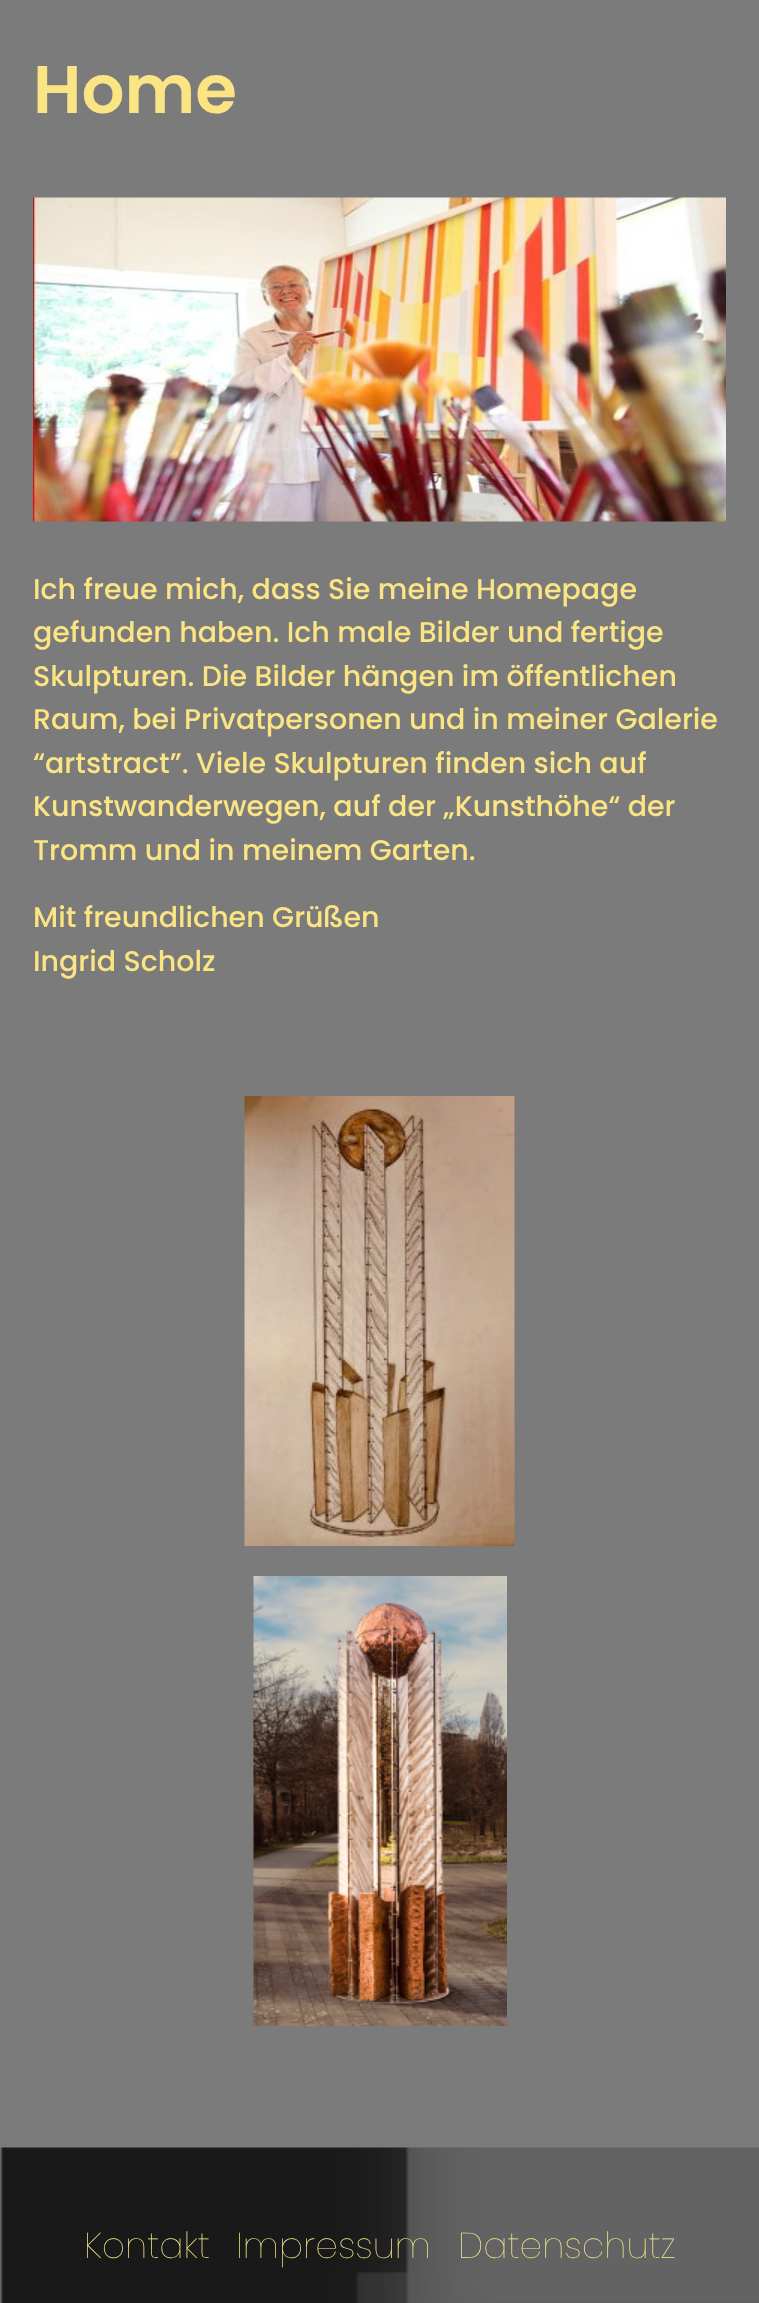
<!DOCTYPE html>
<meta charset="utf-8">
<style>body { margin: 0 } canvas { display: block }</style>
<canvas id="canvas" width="759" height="2303"></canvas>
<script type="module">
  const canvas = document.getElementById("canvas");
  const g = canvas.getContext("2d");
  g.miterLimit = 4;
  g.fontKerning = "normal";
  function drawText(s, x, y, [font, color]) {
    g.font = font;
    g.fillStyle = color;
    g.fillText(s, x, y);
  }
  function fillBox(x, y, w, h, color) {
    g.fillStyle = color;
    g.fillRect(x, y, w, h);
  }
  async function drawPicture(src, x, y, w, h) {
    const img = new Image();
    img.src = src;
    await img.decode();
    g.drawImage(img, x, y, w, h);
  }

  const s1 = ["600 67.5px Poppins", "#FAE483"];
  const s2 = ["500 28.5px Poppins", "#FAE483"];
  const s3 = ["100 36px Poppins", "#F5ED8F"];

  fillBox(0, 0, 759, 2303, "#7B7B7B");
  drawText("Home", 33, 113, s1);
  await drawPicture("pic1.png", 33, 197, 693, 325);
  drawText("Ich freue mich, dass Sie meine Homepage", 33, 599, s2);
  drawText("gefunden haben. Ich male Bilder und fertige", 33, 642, s2);
  drawText("Skulpturen. Die Bilder hängen im öffentlichen", 33, 686, s2);
  drawText("Raum, bei Privatpersonen und in meiner Galerie", 33, 729, s2);
  drawText("“artstract”. Viele Skulpturen finden sich auf", 33, 773, s2);
  drawText("Kunstwanderwegen, auf der „Kunsthöhe“ der", 33, 816, s2);
  drawText("Tromm und in meinem Garten.", 33, 860, s2);
  drawText("Mit freundlichen Grüßen", 33, 927, s2);
  drawText("Ingrid Scholz", 33, 971, s2);
  await drawPicture("pic2.png", 244, 1096, 271, 450);
  await drawPicture("pic3.png", 253, 1576, 254, 450);
  await drawPicture("pic4.png", 0, 2147, 759, 156);
  drawText("Kontakt", 84, 2258, s3);
  drawText("Impressum", 236, 2258, s3);
  drawText("Datenschutz", 458, 2258, s3);
</script>
